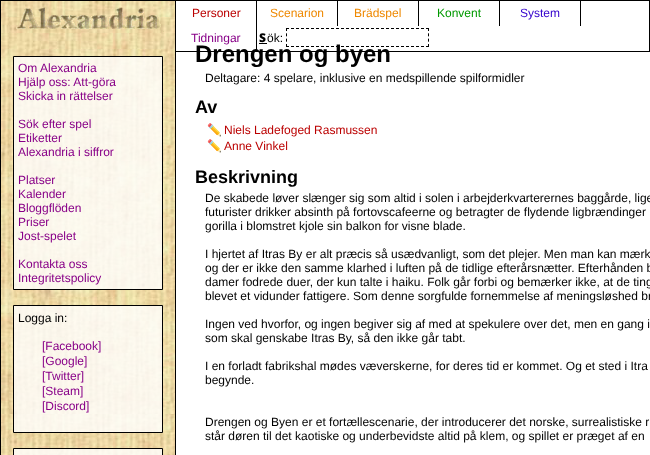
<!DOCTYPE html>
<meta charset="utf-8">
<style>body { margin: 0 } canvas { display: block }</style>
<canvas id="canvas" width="650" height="455"></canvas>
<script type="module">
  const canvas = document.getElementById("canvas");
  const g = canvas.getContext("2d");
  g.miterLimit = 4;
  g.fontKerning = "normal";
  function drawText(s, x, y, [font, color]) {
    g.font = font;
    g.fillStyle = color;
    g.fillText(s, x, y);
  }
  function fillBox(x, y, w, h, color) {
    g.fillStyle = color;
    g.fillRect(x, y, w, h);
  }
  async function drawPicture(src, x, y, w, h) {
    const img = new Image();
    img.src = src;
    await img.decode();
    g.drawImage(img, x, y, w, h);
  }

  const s1 = ["12px Liberation Sans", "#BB0000"];
  const s2 = ["12px Liberation Sans", "#EE8800"];
  const s3 = ["12px Liberation Sans", "#009900"];
  const s4 = ["12px Liberation Sans", "#3300CC"];
  const s5 = ["12px Liberation Sans", "#880088"];
  const s6 = ["900 12px Noto Sans", "#000000"];
  const s7 = ["12px Liberation Sans", "#000000"];
  const s8 = ["bold 24px Liberation Sans", "#000000"];
  const s9 = ["bold 18px Liberation Sans", "#000000"];
  const s10 = ["12px Noto Color Emoji", "#000000"];

  fillBox(0, 0, 650, 455, "#FFFFFF");
  await drawPicture("pic1.png", 1, 1, 174, 454);
  g.strokeStyle = "#000000";
  g.strokeRect(0.5, 0.5, 175, 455);
  g.strokeRect(175.5, 0.5, 474, 51);
  fillBox(256, 1, 1, 50, "#000000");
  drawText("Personer", 192, 17, s1);
  fillBox(337, 1, 1, 25, "#000000");
  drawText("Scenarion", 270, 17, s2);
  fillBox(418, 1, 1, 25, "#000000");
  drawText("Brädspel", 354, 17, s2);
  fillBox(499, 1, 1, 25, "#000000");
  drawText("Konvent", 437, 17, s3);
  fillBox(580, 1, 1, 25, "#000000");
  drawText("System", 520, 17, s4);
  drawText("Tidningar", 191, 42, s5);
  drawText("S", 259, 42, s6);
  fillBox(259, 43, 8, 1, "#000000");
  drawText("ök:", 267, 42, s7);
  g.beginPath();
  g.moveTo(286, 28.5);
  g.lineTo(429, 28.5);
  g.setLineDash([3, 2]);
  g.stroke();
  g.beginPath();
  g.moveTo(428.5, 28);
  g.lineTo(428.5, 47);
  g.setLineDash([3, 2.33]);
  g.stroke();
  g.beginPath();
  g.moveTo(286, 46.5);
  g.lineTo(429, 46.5);
  g.setLineDash([3, 2]);
  g.stroke();
  g.beginPath();
  g.moveTo(286.5, 28);
  g.lineTo(286.5, 47);
  g.setLineDash([3, 2.33]);
  g.stroke();
  await drawPicture("pic2.png", 16, 7, 148, 25);
  g.fillStyle = "rgba(255, 255, 255, 0.8)";
  g.beginPath();
  g.rect(13.5, 56.5, 149, 233);
  g.fill();
  g.setLineDash([]);
  g.stroke();
  drawText("Om Alexandria", 18, 72, s5);
  drawText("Hjälp oss: Att-göra", 18, 86, s5);
  drawText("Skicka in rättelser", 18, 100, s5);
  drawText("Sök efter spel", 18, 128, s5);
  drawText("Etiketter", 18, 142, s5);
  drawText("Alexandria i siffror", 18, 156, s5);
  drawText("Platser", 18, 184, s5);
  drawText("Kalender", 18, 198, s5);
  drawText("Bloggflöden", 18, 212, s5);
  drawText("Priser", 18, 226, s5);
  drawText("Jost-spelet", 18, 240, s5);
  drawText("Kontakta oss", 18, 268, s5);
  drawText("Integritetspolicy", 18, 282, s5);
  g.fillStyle = "rgba(255, 255, 255, 0.8)";
  g.beginPath();
  g.rect(13.5, 305.5, 149, 127);
  g.fill();
  g.stroke();
  drawText("Logga in:", 18, 322, s7);
  drawText("[Facebook]", 42, 350, s5);
  drawText("[Google]", 42, 365, s5);
  drawText("[Twitter]", 42, 380, s5);
  drawText("[Steam]", 42, 395, s5);
  drawText("[Discord]", 42, 410, s5);
  g.fillStyle = "rgba(255, 255, 255, 0.8)";
  g.beginPath();
  g.rect(13.5, 448.5, 149, 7);
  g.fill();
  g.stroke();
  drawText("Drengen og byen", 195, 62, s8);
  drawText("Deltagare: 4 spelare, inklusive en medspillende spilformidler", 205, 82, s7);
  drawText("Av", 195, 113, s9);
  drawText("✏️", 207, 134, s10);
  drawText("Niels Ladefoged Rasmussen", 224, 134, s1);
  drawText("✏️", 207, 150, s10);
  drawText("Anne Vinkel", 224, 150, s1);
  drawText("Beskrivning", 195, 183, s9);
  drawText("De skabede løver slænger sig som altid i solen i arbejderkvarterernes baggårde, lige", 205, 202, s7);
  drawText("futurister drikker absinth på fortovscafeerne og betragter de flydende ligbrændinger", 205, 216, s7);
  drawText("gorilla i blomstret kjole sin balkon for visne blade.", 205, 230, s7);
  drawText("I hjertet af Itras By er alt præcis så usædvanligt, som det plejer. Men man kan mærk", 205, 258, s7);
  drawText("og der er ikke den samme klarhed i luften på de tidlige efterårsnætter. Efterhånden b", 205, 272, s7);
  drawText("damer fodrede duer, der kun talte i haiku. Folk går forbi og bemærker ikke, at de ting", 205, 286, s7);
  drawText("blevet et vidunder fattigere. Som denne sorgfulde fornemmelse af meningsløshed br", 205, 300, s7);
  drawText("Ingen ved hvorfor, og ingen begiver sig af med at spekulere over det, men en gang i", 205, 328, s7);
  drawText("som skal genskabe Itras By, så den ikke går tabt.", 205, 342, s7);
  drawText("I en forladt fabrikshal mødes væverskerne, for deres tid er kommet. Og et sted i Itra", 205, 370, s7);
  drawText("begynde.", 205, 384, s7);
  drawText("Drengen og Byen er et fortællescenarie, der introducerer det norske, surrealistiske r", 205, 426, s7);
  drawText("står døren til det kaotiske og underbevidste altid på klem, og spillet er præget af en", 205, 440, s7);
</script>
